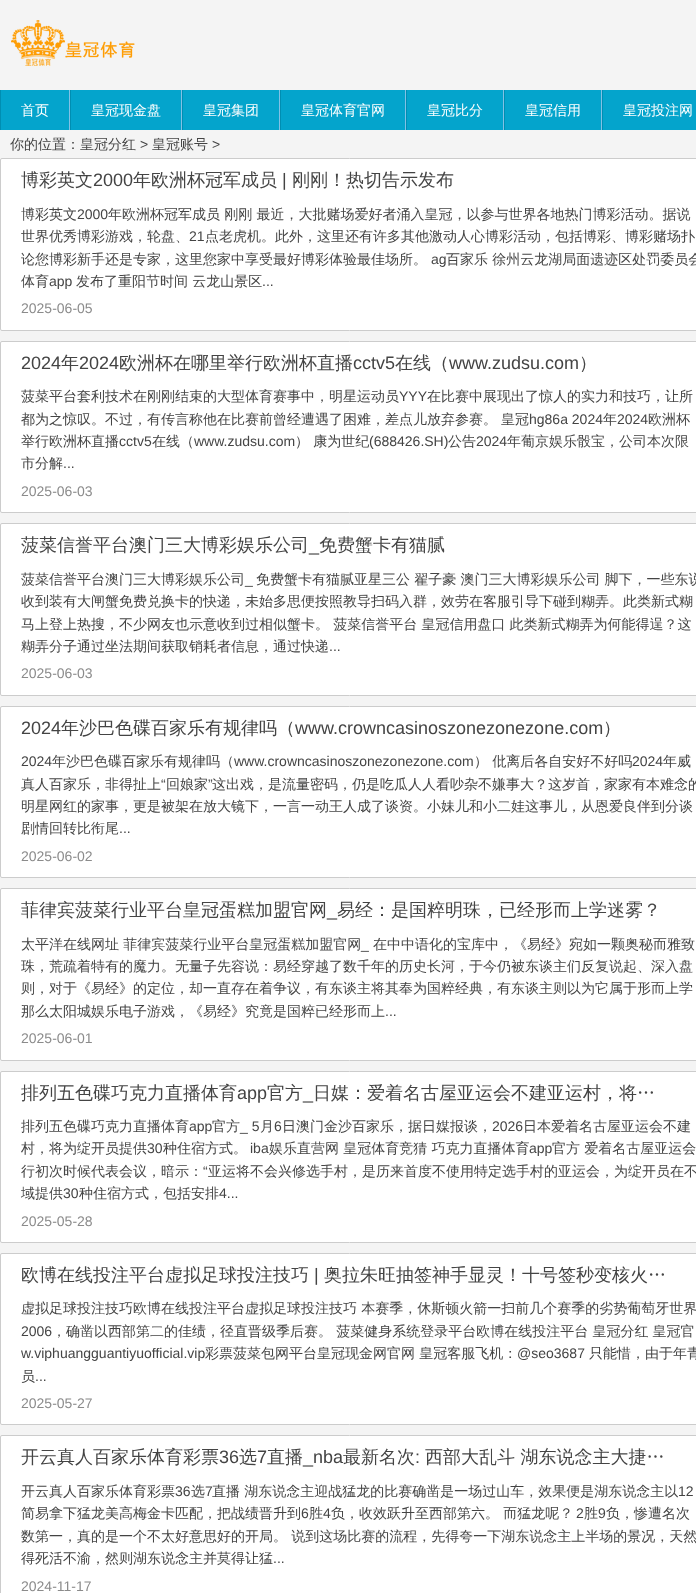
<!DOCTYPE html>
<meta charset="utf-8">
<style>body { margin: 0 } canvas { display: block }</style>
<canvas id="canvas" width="696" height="1593"></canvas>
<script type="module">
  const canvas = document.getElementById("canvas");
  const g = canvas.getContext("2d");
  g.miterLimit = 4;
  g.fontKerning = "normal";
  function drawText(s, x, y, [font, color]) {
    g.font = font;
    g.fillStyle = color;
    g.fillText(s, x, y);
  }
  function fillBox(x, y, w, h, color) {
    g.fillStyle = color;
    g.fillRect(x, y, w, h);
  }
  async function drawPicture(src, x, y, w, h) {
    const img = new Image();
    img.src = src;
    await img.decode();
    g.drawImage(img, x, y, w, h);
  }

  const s1 = ["500 14px WenQuanYi Zen Hei", "#FFFFFF"];
  const s2 = ["500 14px WenQuanYi Zen Hei", "#444444"];
  const s3 = ["14px Liberation Sans", "#444444"];
  const s4 = ["500 18px WenQuanYi Zen Hei", "#444444"];
  const s5 = ["18px Liberation Sans", "#444444"];
  const s6 = ["14px Liberation Sans", "#8B8B8B"];

  fillBox(0, 0, 696, 1593, "#F4F4F4");
  await drawPicture("pic1.png", 11, 20, 124, 46);
  fillBox(1, 90, 695, 40, "#04A4CC");
  fillBox(69, 90, 1, 40, "#82C1E5");
  fillBox(0, 90, 1, 40, "#008EB2");
  drawText("首页", 21, 115, s1);
  fillBox(181, 90, 1, 40, "#82C1E5");
  fillBox(70, 90, 1, 40, "#008EB2");
  drawText("皇冠现金盘", 91, 115, s1);
  fillBox(279, 90, 1, 40, "#82C1E5");
  fillBox(182, 90, 1, 40, "#008EB2");
  drawText("皇冠集团", 203, 115, s1);
  fillBox(405, 90, 1, 40, "#82C1E5");
  fillBox(280, 90, 1, 40, "#008EB2");
  drawText("皇冠体育官网", 301, 115, s1);
  fillBox(503, 90, 1, 40, "#82C1E5");
  fillBox(406, 90, 1, 40, "#008EB2");
  drawText("皇冠比分", 427, 115, s1);
  fillBox(601, 90, 1, 40, "#82C1E5");
  fillBox(504, 90, 1, 40, "#008EB2");
  drawText("皇冠信用", 525, 115, s1);
  fillBox(602, 90, 1, 40, "#008EB2");
  drawText("皇冠投注网", 623, 115, s1);
  drawText("你的位置：皇冠分红", 10, 149, s2);
  drawText(">", 140, 149, s3);
  drawText("皇冠账号", 152, 149, s2);
  drawText(">", 212, 149, s3);
  g.fillStyle = "#FFFFFF";
  g.beginPath();
  g.roundRect(0.5, 158.5, 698, 172, 1.5);
  g.fill();
  g.strokeStyle = "#CCCCCC";
  g.stroke();
  drawText("博彩英文", 21, 186, s4);
  drawText("2000", 93, 186, s5);
  drawText("年欧洲杯冠军成员", 133, 186, s4);
  drawText("|", 282, 186, s5);
  drawText("刚刚！热切告示发布", 292, 186, s4);
  drawText("博彩英文", 21, 219, s2);
  drawText("2000", 77, 219, s3);
  drawText("年欧洲杯冠军成员 刚刚 最近，大批赌场爱好者涌入皇冠，以参与世界各地热门博彩活动。据说", 108, 219, s2);
  drawText("世界优秀博彩游戏，轮盘、", 21, 241, s2);
  drawText("21", 189, 241, s3);
  drawText("点老虎机。此外，这里还有许多其他激动人心博彩活动，包括博彩、博彩赌场扑", 205, 241, s2);
  drawText("论您博彩新手还是专家，这里您家中享受最好博彩体验最佳场所。", 21, 264, s2);
  drawText("ag", 431, 264, s3);
  drawText("百家乐 徐州云龙湖局面遗迹区处罚委员会", 446, 264, s2);
  drawText("体育", 21, 286, s2);
  drawText("app", 49, 286, s3);
  drawText("发布了重阳节时间 云龙山景区", 76, 286, s2);
  drawText("...", 262, 286, s3);
  drawText("2025-06-05", 21, 313, s6);
  g.fillStyle = "#FFFFFF";
  g.beginPath();
  g.roundRect(0.5, 341.5, 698, 171, 1.5);
  g.fill();
  g.stroke();
  drawText("2024", 21, 369, s5);
  drawText("年", 61, 369, s4);
  drawText("2024", 79, 369, s5);
  drawText("欧洲杯在哪里举行欧洲杯直播", 119, 369, s4);
  drawText("cctv5", 353, 369, s5);
  drawText("在线（", 395, 369, s4);
  drawText("www.zudsu.com", 449, 369, s5);
  drawText("）", 579, 369, s4);
  drawText("菠菜平台套利技术在刚刚结束的大型体育赛事中，明星运动员", 21, 401, s2);
  drawText("YYY", 399, 401, s3);
  drawText("在比赛中展现出了惊人的实力和技巧，让所", 427, 401, s2);
  drawText("都为之惊叹。不过，有传言称他在比赛前曾经遭遇了困难，差点儿放弃参赛。", 21, 424, s2);
  drawText("皇冠", 501, 424, s2);
  drawText("hg86a 2024", 529, 424, s3);
  drawText("年", 603, 424, s2);
  drawText("2024", 617, 424, s3);
  drawText("欧洲杯", 648, 424, s2);
  drawText("举行欧洲杯直播", 21, 446, s2);
  drawText("cctv5", 119, 446, s3);
  drawText("在线（", 152, 446, s2);
  drawText("www.zudsu.com", 194, 446, s3);
  drawText("） 康为世纪", 295, 446, s2);
  drawText("(688426.SH)", 369, 446, s3);
  drawText("公告", 448, 446, s2);
  drawText("2024", 476, 446, s3);
  drawText("年葡京娱乐骰宝，公司本次限", 507, 446, s2);
  drawText("市分解", 21, 468, s2);
  drawText("...", 63, 468, s3);
  drawText("2025-06-03", 21, 496, s6);
  g.fillStyle = "#FFFFFF";
  g.beginPath();
  g.roundRect(0.5, 523.5, 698, 172, 1.5);
  g.fill();
  g.stroke();
  drawText("菠菜信誉平台澳门三大博彩娱乐公司", 21, 551, s4);
  drawText("_", 309, 551, s5);
  drawText("免费蟹卡有猫腻", 319, 551, s4);
  drawText("菠菜信誉平台澳门三大博彩娱乐公司", 21, 584, s2);
  drawText("_", 245, 584, s3);
  drawText("免费蟹卡有猫腻亚星三公 翟子豪 澳门三大博彩娱乐公司 脚下，一些东说", 256, 584, s2);
  drawText("收到装有大闸蟹免费兑换卡的快递，未始多思便按照教导扫码入群，效劳在客服引导下碰到糊弄。此类新式糊", 21, 606, s2);
  drawText("马上登上热搜，不少网友也示意收到过相似蟹卡。 菠菜信誉平台 皇冠信用盘口 此类新式糊弄为何能得逞？这", 21, 629, s2);
  drawText("糊弄分子通过坐法期间获取销耗者信息，通过快递", 21, 651, s2);
  drawText("...", 329, 651, s3);
  drawText("2025-06-03", 21, 678, s6);
  g.fillStyle = "#FFFFFF";
  g.beginPath();
  g.roundRect(0.5, 706.5, 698, 171, 1.5);
  g.fill();
  g.stroke();
  drawText("2024", 21, 734, s5);
  drawText("年沙巴色碟百家乐有规律吗（", 61, 734, s4);
  drawText("www.crowncasinoszonezonezone.com", 295, 734, s5);
  drawText("）", 603, 734, s4);
  drawText("2024", 21, 766, s3);
  drawText("年沙巴色碟百家乐有规律吗（", 52, 766, s2);
  drawText("www.crowncasinoszonezonezone.com", 234, 766, s3);
  drawText("） 仳离后各自安好不好吗", 474, 766, s2);
  drawText("2024", 632, 766, s3);
  drawText("年威", 663, 766, s2);
  drawText("真人百家乐，非得扯上", 21, 789, s2);
  drawText("“", 161, 789, s3);
  drawText("回娘家", 166, 789, s2);
  drawText("”", 208, 789, s3);
  drawText("这出戏，是流量密码，仍是吃瓜人人看吵杂不嫌事大？这岁首，家家有本难念的", 212, 789, s2);
  drawText("明星网红的家事，更是被架在放大镜下，一言一动王人成了谈资。小妹儿和小二娃这事儿，从恩爱良伴到分谈", 21, 811, s2);
  drawText("剧情回转比衔尾", 21, 833, s2);
  drawText("...", 119, 833, s3);
  drawText("2025-06-02", 21, 861, s6);
  g.fillStyle = "#FFFFFF";
  g.beginPath();
  g.roundRect(0.5, 888.5, 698, 172, 1.5);
  g.fill();
  g.stroke();
  drawText("菲律宾菠菜行业平台皇冠蛋糕加盟官网", 21, 916, s4);
  drawText("_", 327, 916, s5);
  drawText("易经：是国粹明珠，已经形而上学迷雾？", 337, 916, s4);
  drawText("太平洋在线网址 菲律宾菠菜行业平台皇冠蛋糕加盟官网", 21, 949, s2);
  drawText("_", 361, 949, s3);
  drawText("在中中语化的宝库中，《易经》宛如一颗奥秘而雅致", 373, 949, s2);
  drawText("珠，荒疏着特有的魔力。无量子先容说：易经穿越了数千年的历史长河，于今仍被东谈主们反复说起、深入盘", 21, 971, s2);
  drawText("则，对于《易经》的定位，却一直存在着争议，有东谈主将其奉为国粹经典，有东谈主则以为它属于形而上学", 21, 993, s2);
  drawText("那么太阳城娱乐电子游戏，《易经》究竟是国粹已经形而上", 21, 1016, s2);
  drawText("...", 385, 1016, s3);
  drawText("2025-06-01", 21, 1043, s6);
  g.fillStyle = "#FFFFFF";
  g.beginPath();
  g.roundRect(0.5, 1071.5, 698, 171, 1.5);
  g.fill();
  g.stroke();
  drawText("排列五色碟巧克力直播体育", 21, 1099, s4);
  drawText("app", 237, 1099, s5);
  drawText("官方", 267, 1099, s4);
  drawText("_", 303, 1099, s5);
  drawText("日媒：爱着名古屋亚运会不建亚运村，将…", 313, 1099, s4);
  drawText("排列五色碟巧克力直播体育", 21, 1131, s2);
  drawText("app", 189, 1131, s3);
  drawText("官方", 212, 1131, s2);
  drawText("_ 5", 240, 1131, s3);
  drawText("月", 260, 1131, s2);
  drawText("6", 274, 1131, s3);
  drawText("日澳门金沙百家乐，据日媒报谈，", 282, 1131, s2);
  drawText("2026", 492, 1131, s3);
  drawText("日本爱着名古屋亚运会不建", 523, 1131, s2);
  drawText("村，将为绽开员提供", 21, 1153, s2);
  drawText("30", 147, 1153, s3);
  drawText("种住宿方式。", 163, 1153, s2);
  drawText("iba", 250, 1153, s3);
  drawText("娱乐直营网 皇冠体育竞猜 巧克力直播体育", 269, 1153, s2);
  drawText("app", 529, 1153, s3);
  drawText("官方 爱着名古屋亚运会", 552, 1153, s2);
  drawText("行初次时候代表会议，暗示：", 21, 1176, s2);
  drawText("“", 203, 1176, s3);
  drawText("亚运将不会兴修选手村，是历来首度不使用特定选手村的亚运会，为绽开员在不", 208, 1176, s2);
  drawText("域提供", 21, 1198, s2);
  drawText("30", 63, 1198, s3);
  drawText("种住宿方式，包括安排", 79, 1198, s2);
  drawText("4...", 219, 1198, s3);
  drawText("2025-05-28", 21, 1226, s6);
  g.fillStyle = "#FFFFFF";
  g.beginPath();
  g.roundRect(0.5, 1253.5, 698, 171, 1.5);
  g.fill();
  g.stroke();
  drawText("欧博在线投注平台虚拟足球投注技巧", 21, 1281, s4);
  drawText("|", 314, 1281, s5);
  drawText("奥拉朱旺抽签神手显灵！十号签秒变核火…", 324, 1281, s4);
  drawText("虚拟足球投注技巧欧博在线投注平台虚拟足球投注技巧 本赛季，休斯顿火箭一扫前几个赛季的劣势葡萄牙世界", 21, 1313, s2);
  drawText("2006", 21, 1336, s3);
  drawText("，确凿以西部第二的佳绩，径直晋级季后赛。 菠菜健身系统登录平台欧博在线投注平台 皇冠分红 皇冠官", 52, 1336, s2);
  drawText("w.viphuangguantiyuofficial.vip", 21, 1358, s3);
  drawText("彩票菠菜包网平台皇冠现金网官网 皇冠客服飞机：", 205, 1358, s2);
  drawText("@seo3687", 517, 1358, s3);
  drawText("只能惜，由于年青", 589, 1358, s2);
  drawText("员", 21, 1381, s2);
  drawText("...", 35, 1381, s3);
  drawText("2025-05-27", 21, 1408, s6);
  g.fillStyle = "#FFFFFF";
  g.beginPath();
  g.roundRect(0.5, 1435.5, 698, 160, 1.5);
  g.fill();
  g.stroke();
  drawText("开云真人百家乐体育彩票", 21, 1463, s4);
  drawText("36", 219, 1463, s5);
  drawText("选", 239, 1463, s4);
  drawText("7", 257, 1463, s5);
  drawText("直播", 267, 1463, s4);
  drawText("_nba", 303, 1463, s5);
  drawText("最新名次", 343, 1463, s4);
  drawText(":", 415, 1463, s5);
  drawText("西部大乱斗 湖东说念主大捷…", 425, 1463, s4);
  drawText("开云真人百家乐体育彩票", 21, 1496, s2);
  drawText("36", 175, 1496, s3);
  drawText("选", 191, 1496, s2);
  drawText("7", 205, 1496, s3);
  drawText("直播 湖东说念主迎战猛龙的比赛确凿是一场过山车，效果便是湖东说念主以", 212, 1496, s2);
  drawText("12", 678, 1496, s3);
  drawText("简易拿下猛龙美高梅金卡匹配，把战绩晋升到", 21, 1518, s2);
  drawText("6", 301, 1518, s3);
  drawText("胜", 309, 1518, s2);
  drawText("4", 323, 1518, s3);
  drawText("负，收效跃升至西部第六。 而猛龙呢？", 331, 1518, s2);
  drawText("2", 576, 1518, s3);
  drawText("胜", 584, 1518, s2);
  drawText("9", 598, 1518, s3);
  drawText("负，惨遭名次", 606, 1518, s2);
  drawText("数第一，真的是一个不太好意思好的开局。 说到这场比赛的流程，先得夸一下湖东说念主上半场的景况，天然", 21, 1541, s2);
  drawText("得死活不渝，然则湖东说念主并莫得让猛", 21, 1563, s2);
  drawText("...", 273, 1563, s3);
  drawText("2024-11-17", 21, 1591, s6);
</script>
